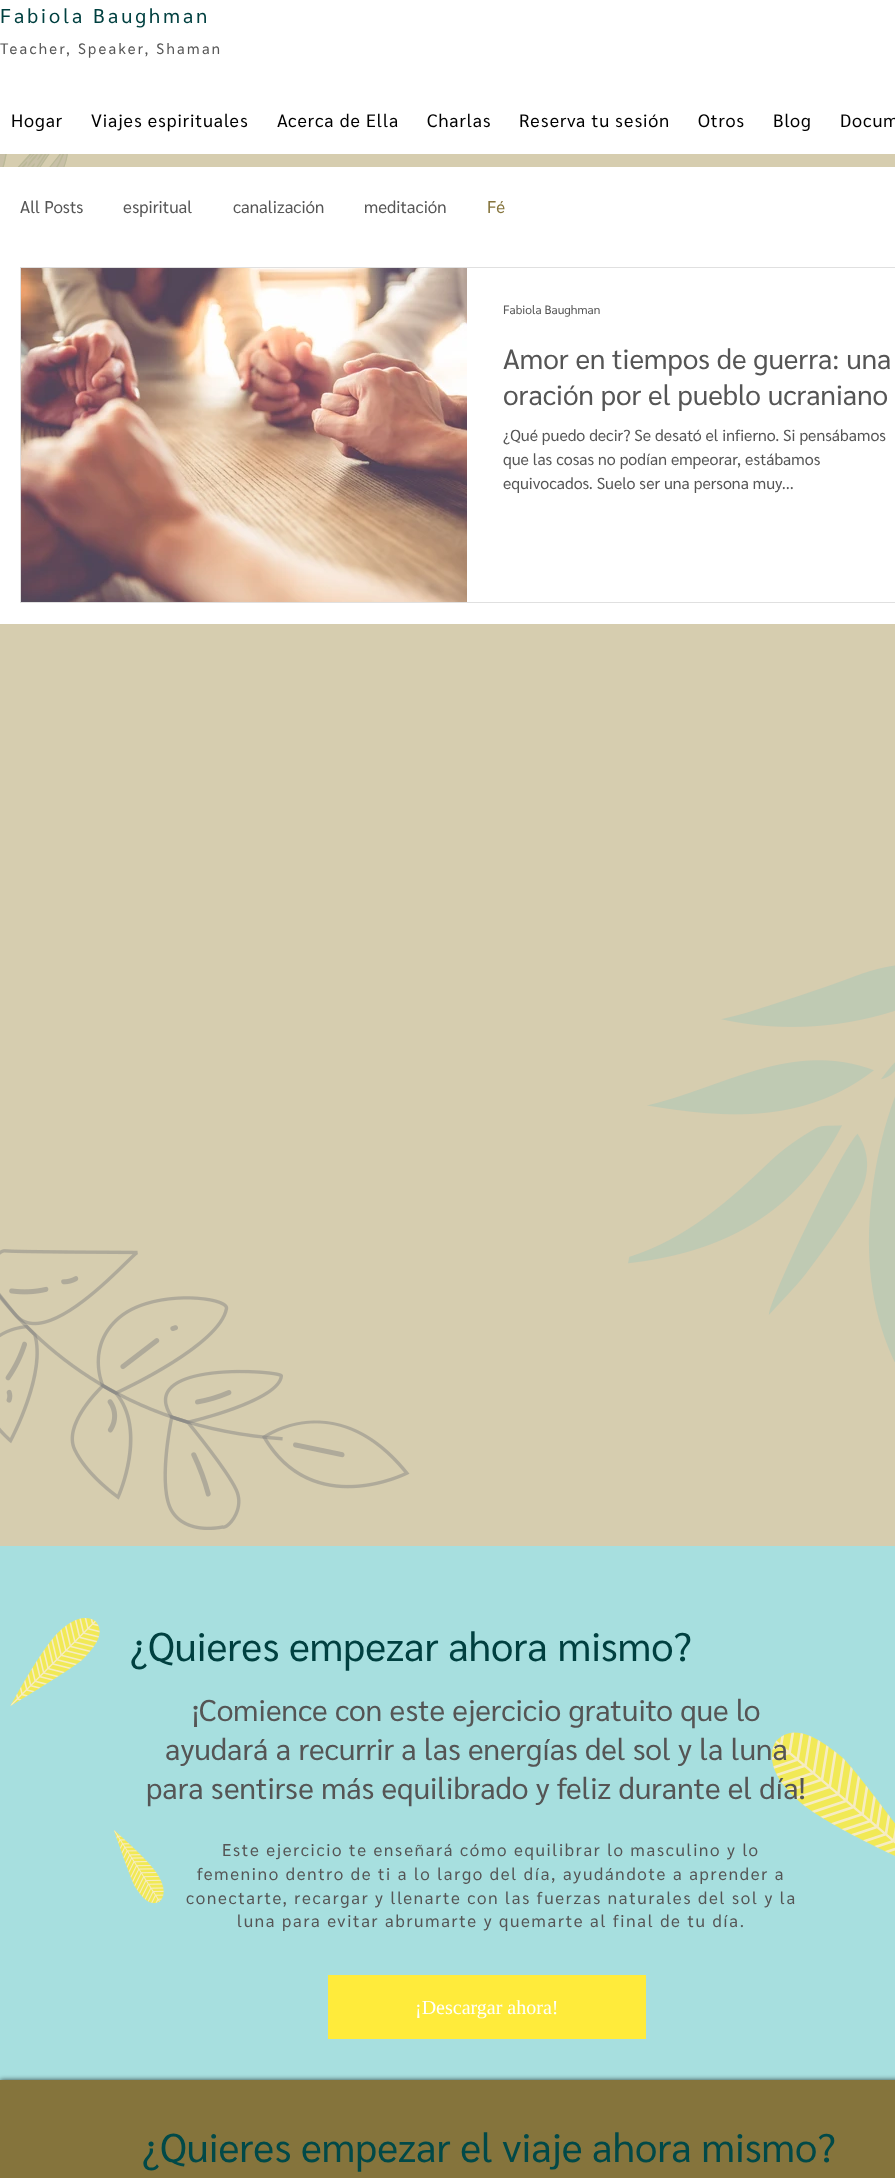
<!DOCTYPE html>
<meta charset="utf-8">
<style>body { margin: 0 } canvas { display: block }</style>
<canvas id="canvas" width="895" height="2178"></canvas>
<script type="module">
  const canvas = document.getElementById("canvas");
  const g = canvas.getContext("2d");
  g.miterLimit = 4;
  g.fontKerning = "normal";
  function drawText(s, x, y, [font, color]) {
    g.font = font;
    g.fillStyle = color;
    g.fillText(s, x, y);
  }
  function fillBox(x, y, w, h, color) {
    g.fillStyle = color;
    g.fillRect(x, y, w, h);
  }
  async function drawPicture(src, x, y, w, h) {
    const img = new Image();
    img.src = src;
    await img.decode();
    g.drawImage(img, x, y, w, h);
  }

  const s1 = ["20px Sarabun", "#004040"];
  const s2 = ["15px Sarabun", "#555555"];
  const s3 = ["18px Sarabun", "#000000"];
  const s4 = ["17px Sarabun", "#555555"];
  const s5 = ["17px Sarabun", "#85743C"];
  const s6 = ["12px Sarabun", "#555555"];
  const s7 = ["28px Sarabun", "#555555"];
  const s8 = ["16px Sarabun", "#555555"];
  const s9 = ["40px Sarabun", "#004040"];
  const s10 = ["30px Sarabun", "#555555"];
  const s11 = ["20px Liberation Serif", "#FFFFFF"];
  const s12 = ["40px Sarabun", "#014948"];

  fillBox(0, 0, 895, 2178, "#D6CDAF");
  fillBox(0, 0, 895, 154, "#FFFFFF");
  g.letterSpacing = "3px";
  drawText("Fabiola Baughman", 0, 23, s1);
  g.letterSpacing = "2.25px";
  drawText("Teacher, Speaker, Shaman", 0, 54, s2);
  g.letterSpacing = "0.9px";
  drawText("Hogar", 11, 127, s3);
  drawText("Viajes espirituales", 91, 127, s3);
  drawText("Acerca de Ella", 277, 127, s3);
  drawText("Charlas", 427, 127, s3);
  drawText("Reserva tu sesión", 519, 127, s3);
  drawText("Otros", 698, 127, s3);
  drawText("Blog", 773, 127, s3);
  drawText("Docum", 840, 127, s3);
  await drawPicture("pic1.png", 0, 154, 68, 13);
  fillBox(0, 167, 895, 457, "#FFFFFF");
  g.letterSpacing = "0px";
  drawText("All Posts", 20, 213, s4);
  drawText("espiritual", 123, 213, s4);
  drawText("canalización", 233, 213, s4);
  drawText("meditación", 364, 213, s4);
  drawText("Fé", 487, 213, s5);
  g.strokeStyle = "#E0E0E0";
  g.strokeRect(20.5, 267.5, 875, 335);
  await drawPicture("pic2.png", 21, 268, 446, 334);
  drawText("Fabiola Baughman", 503, 314, s6);
  drawText("Amor en tiempos de guerra: una", 503, 369, s7);
  g.save();
  g.beginPath();
  g.rect(503, 339, 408, 72);
  g.clip();
  drawText("oración por el pueblo ucraniano", 503, 405, s7);
  g.restore();
  drawText("¿Qué puedo decir? Se desató el infierno. Si pensábamos", 503, 441, s8);
  drawText("que las cosas no podían empeorar, estábamos", 503, 465, s8);
  drawText("equivocados. Suelo ser una persona muy...", 503, 489, s8);
  await drawPicture("pic3.png", 0, 1249, 410, 281);
  await drawPicture("pic4.png", 628, 965, 267, 397);
  fillBox(0, 1546, 895, 534, "#A7DFDF");
  await drawPicture("pic5.png", 10, 1618, 90, 88);
  drawText("¿Quieres empezar ahora mismo?", 130, 1661, s9);
  drawText("¡Comience con este ejercicio gratuito que lo", 192, 1721, s10);
  await drawPicture("pic6.png", 771, 1732, 124, 124);
  drawText("ayudará a recurrir a las energías del sol y la luna", 165, 1760, s10);
  drawText("para sentirse más equilibrado y feliz durante el día!", 146, 1799, s10);
  await drawPicture("pic7.png", 114, 1830, 50, 74);
  g.letterSpacing = "1.7px";
  drawText("Este ejercicio te enseñará cómo equilibrar lo masculino y lo", 222, 1856, s4);
  drawText("femenino dentro de ti a lo largo del día, ayudándote a aprender a", 197, 1880, s4);
  drawText("conectarte, recargar y llenarte con las fuerzas naturales del sol y la", 186, 1904, s4);
  drawText("luna para evitar abrumarte y quemarte al final de tu día.", 237, 1927, s4);
  fillBox(328, 1975, 318, 64, "#FFEB3B");
  g.letterSpacing = "0px";
  drawText("¡Descargar ahora!", 415, 2014, s11);
  g.fillStyle = "rgba(0, 0, 0, 0.7)";
  g.filter = "blur(2.5px)";
  g.beginPath();
  g.rect(0, 2080, 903, 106);
  g.fill();
  g.filter = "none";
  fillBox(0, 2080, 895, 98, "#85743C");
  drawText("¿Quieres empezar el viaje ahora mismo?", 142, 2162, s12);
</script>
